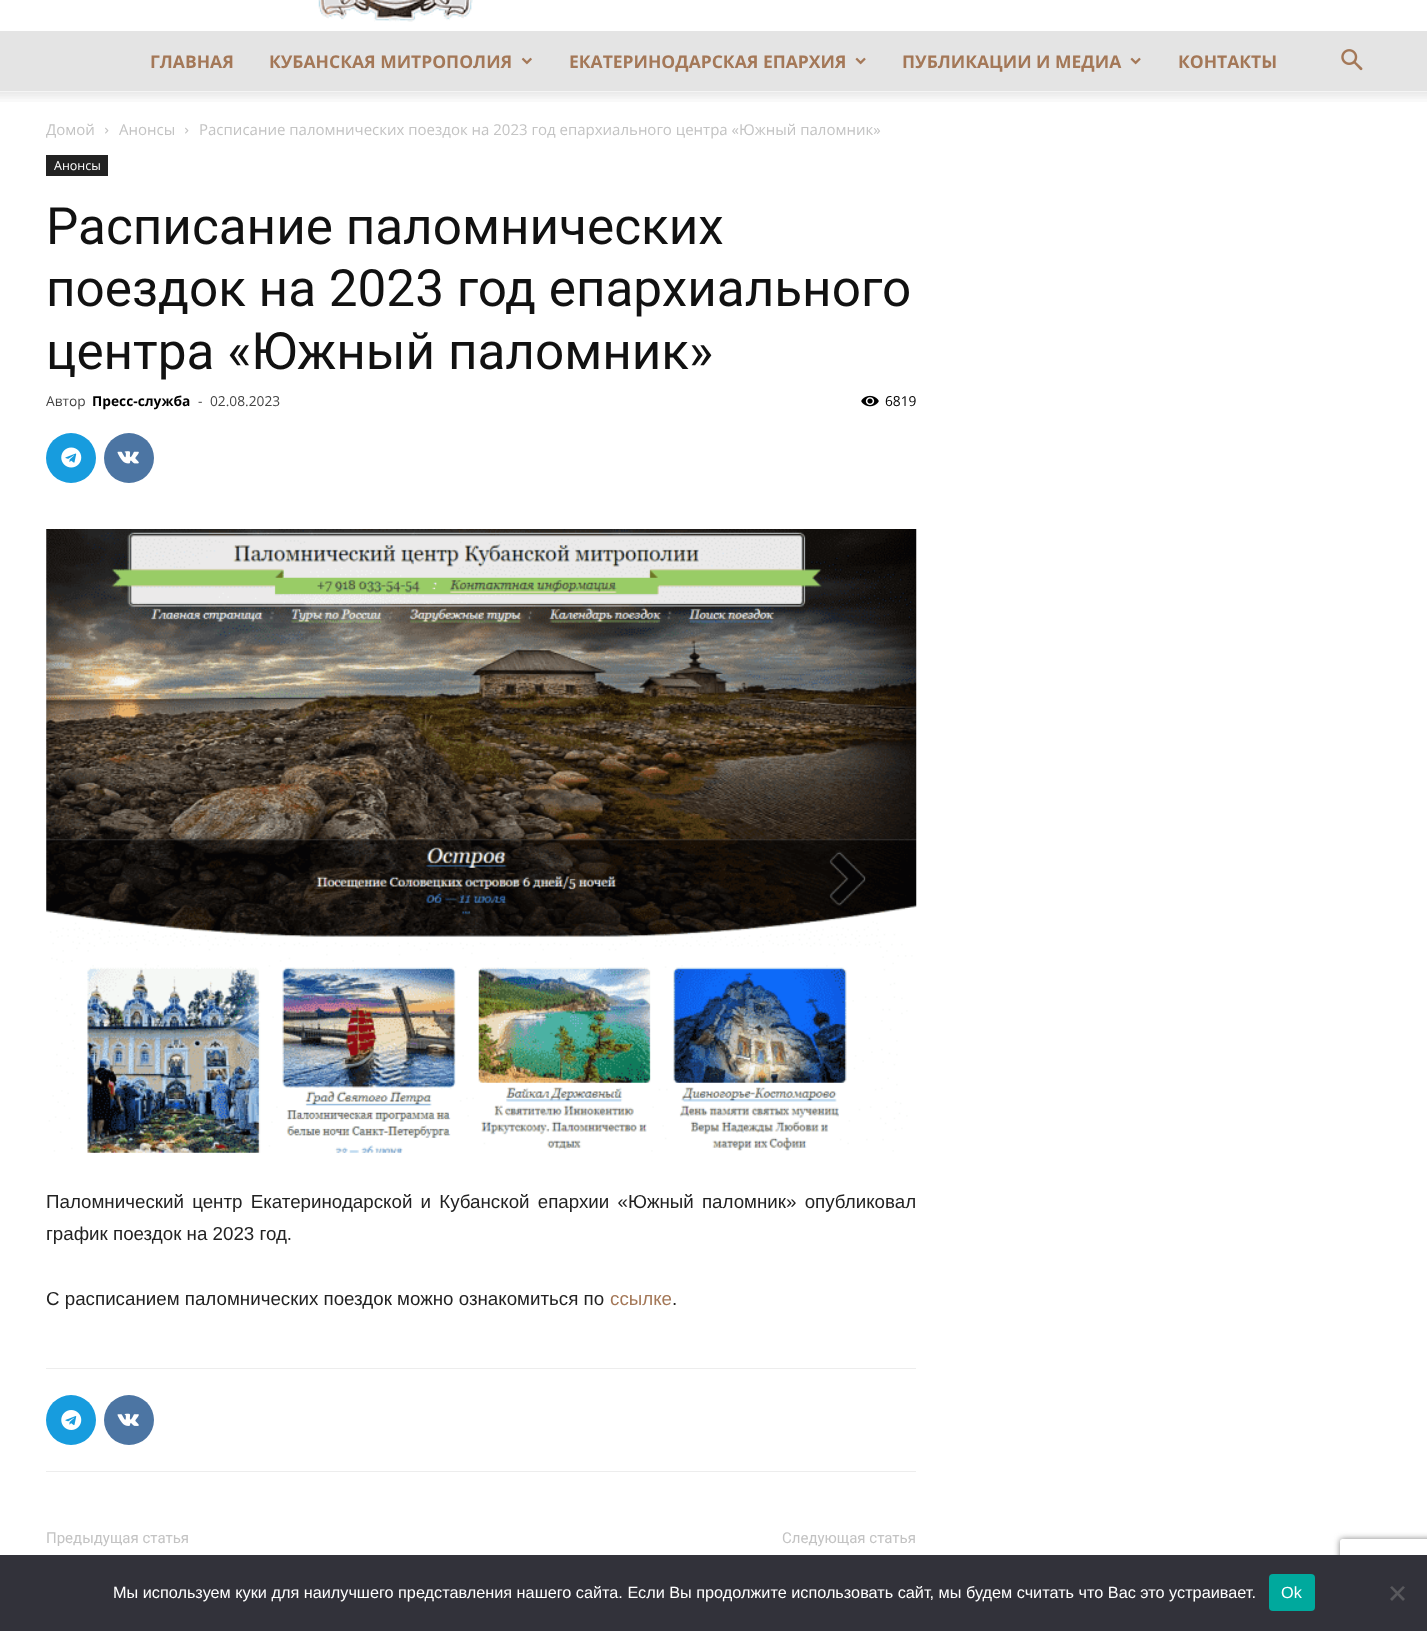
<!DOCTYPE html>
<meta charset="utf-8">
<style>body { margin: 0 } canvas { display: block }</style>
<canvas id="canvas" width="1427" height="1631"></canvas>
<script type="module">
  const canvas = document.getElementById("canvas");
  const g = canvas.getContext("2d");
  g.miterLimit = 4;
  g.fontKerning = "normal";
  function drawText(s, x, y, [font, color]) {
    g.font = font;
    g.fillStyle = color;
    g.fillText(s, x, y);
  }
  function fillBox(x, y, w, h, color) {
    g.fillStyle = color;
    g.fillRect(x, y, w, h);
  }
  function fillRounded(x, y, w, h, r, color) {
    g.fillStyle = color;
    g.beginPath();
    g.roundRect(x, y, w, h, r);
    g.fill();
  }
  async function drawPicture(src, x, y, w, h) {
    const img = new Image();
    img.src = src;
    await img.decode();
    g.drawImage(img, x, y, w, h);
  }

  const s1 = ["bold 17.5px Open Sans", "#A47858"];
  const s2 = ["15px Open Sans", "#C3C3C3"];
  const s3 = ["12.5px Open Sans", "#FFFFFF"];
  const s4 = ["51.25px Roboto", "#111111"];
  const s5 = ["13.75px Open Sans", "#444444"];
  const s6 = ["bold 13.75px Open Sans", "#000000"];
  const s7 = ["13.75px Open Sans", "#000000"];
  const s8 = ["18.75px Liberation Sans", "#222222"];
  const s9 = ["18.75px Liberation Sans", "#A47858"];
  const s10 = ["15px Roboto", "#C3C3C3"];
  const s11 = ["16.25px Liberation Sans", "#FFFFFF"];

  fillBox(0, 0, 1427, 1631, "#FFFFFF");
  await drawPicture("pic1.png", 318, 0, 155, 22);
  fillBox(0, 31, 1427, 60, "#E4E4E4");
  drawText("ГЛАВНАЯ", 150, 68, s1);
  drawText("КУБАНСКАЯ МИТРОПОЛИЯ", 269, 68, s1);
  await drawPicture("pic2.png", 521, 57, 11, 8);
  drawText("ЕКАТЕРИНОДАРСКАЯ ЕПАРХИЯ", 569, 68, s1);
  await drawPicture("pic3.png", 855, 57, 11, 8);
  drawText("ПУБЛИКАЦИИ И МЕДИА", 902, 68, s1);
  await drawPicture("pic3.png", 1130, 57, 11, 8);
  drawText("КОНТАКТЫ", 1178, 68, s1);
  await drawPicture("pic4.png", 1341, 49, 22, 22);
  await drawPicture("pic5.png", 0, 91, 1427, 11);
  drawText("Домой", 46, 135, s2);
  await drawPicture("pic6.png", 105, 127, 4, 7);
  drawText("Анонсы", 119, 135, s2);
  await drawPicture("pic6.png", 185, 127, 4, 7);
  drawText("Расписание паломнических поездок на 2023 год епархиального центра «Южный паломник»", 199, 135, s2);
  fillBox(46, 155, 62, 21, "#222222");
  drawText("Анонсы", 54, 170, s3);
  drawText("Расписание паломнических", 46, 244, s4);
  drawText("поездок на 2023 год епархиального", 46, 306, s4);
  drawText("центра «Южный паломник»", 46, 369, s4);
  drawText("Автор", 46, 406, s5);
  drawText("Пресс-служба", 92, 406, s6);
  drawText("-", 198, 406, s5);
  drawText("02.08.2023", 210, 406, s5);
  await drawPicture("pic7.png", 861, 395, 18, 12);
  drawText("6819", 885, 406, s7);
  g.fillStyle = "#179CDE";
  g.beginPath();
  g.arc(71, 458, 25, 0, Math.PI * 2);
  g.fill();
  await drawPicture("pic8.png", 61, 447, 21, 21);
  g.fillStyle = "#4C75A3";
  g.beginPath();
  g.arc(129, 458, 25, 0, Math.PI * 2);
  g.fill();
  await drawPicture("pic9.png", 117, 451, 22, 13);
  await drawPicture("pic10.png", 46, 529, 871, 624);
  g.wordSpacing = "3px";
  drawText("Паломнический центр Екатеринодарской и Кубанской епархии «Южный паломник» опубликовал", 46, 1208, s8);
  g.wordSpacing = "0px";
  drawText("график поездок на 2023 год.", 46, 1240, s8);
  drawText("С расписанием паломнических поездок можно ознакомиться по", 46, 1305, s8);
  drawText("ссылке", 610, 1305, s9);
  drawText(".", 672, 1305, s8);
  fillBox(46, 1368, 870, 1, "#EDEDED");
  fillBox(46, 1471, 870, 1, "#EDEDED");
  g.fillStyle = "#179CDE";
  g.beginPath();
  g.arc(71, 1420, 25, 0, Math.PI * 2);
  g.fill();
  await drawPicture("pic11.png", 61, 1410, 21, 20);
  g.fillStyle = "#4C75A3";
  g.beginPath();
  g.arc(129, 1420, 25, 0, Math.PI * 2);
  g.fill();
  await drawPicture("pic12.png", 117, 1413, 22, 13);
  drawText("Предыдущая статья", 46, 1543, s10);
  drawText("Следующая статья", 782, 1543, s10);
  g.save();
  g.beginPath();
  g.moveTo(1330, 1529);
  g.lineTo(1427, 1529);
  g.lineTo(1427, 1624);
  g.lineTo(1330, 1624);
  g.closePath();
  g.moveTo(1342.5, 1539);
  g.lineTo(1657.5, 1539);
  g.bezierCurveTo(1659, 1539, 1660, 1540, 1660, 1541.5);
  g.lineTo(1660, 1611.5);
  g.bezierCurveTo(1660, 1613, 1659, 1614, 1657.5, 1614);
  g.lineTo(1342.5, 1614);
  g.bezierCurveTo(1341, 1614, 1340, 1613, 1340, 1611.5);
  g.lineTo(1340, 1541.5);
  g.bezierCurveTo(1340, 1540, 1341, 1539, 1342.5, 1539);
  g.closePath();
  g.clip("evenodd");
  g.fillStyle = "#808080";
  g.filter = "blur(3px)";
  g.beginPath();
  g.roundRect(1340, 1539, 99, 75, 2.5);
  g.fill();
  g.filter = "none";
  g.restore();
  fillBox(0, 1555, 1427, 76, "#32323A");
  drawText("Мы используем куки для наилучшего представления нашего сайта. Если Вы продолжите использовать сайт, мы будем считать что Вас это устраивает.", 113, 1598, s11);
  fillRounded(1269, 1574, 46, 37, 4, "#00A99D");
  drawText("Ok", 1281, 1598, s11);
  g.fillStyle = "#59595D";
  g.beginPath();
  g.moveTo(1403, 1586);
  g.lineTo(1405, 1587.5);
  g.lineTo(1392, 1601);
  g.lineTo(1390, 1599);
  g.closePath();
  g.fill();
  g.beginPath();
  g.moveTo(1390, 1587.5);
  g.lineTo(1392, 1586);
  g.lineTo(1405, 1599);
  g.lineTo(1403, 1601);
  g.closePath();
  g.fill();
</script>
